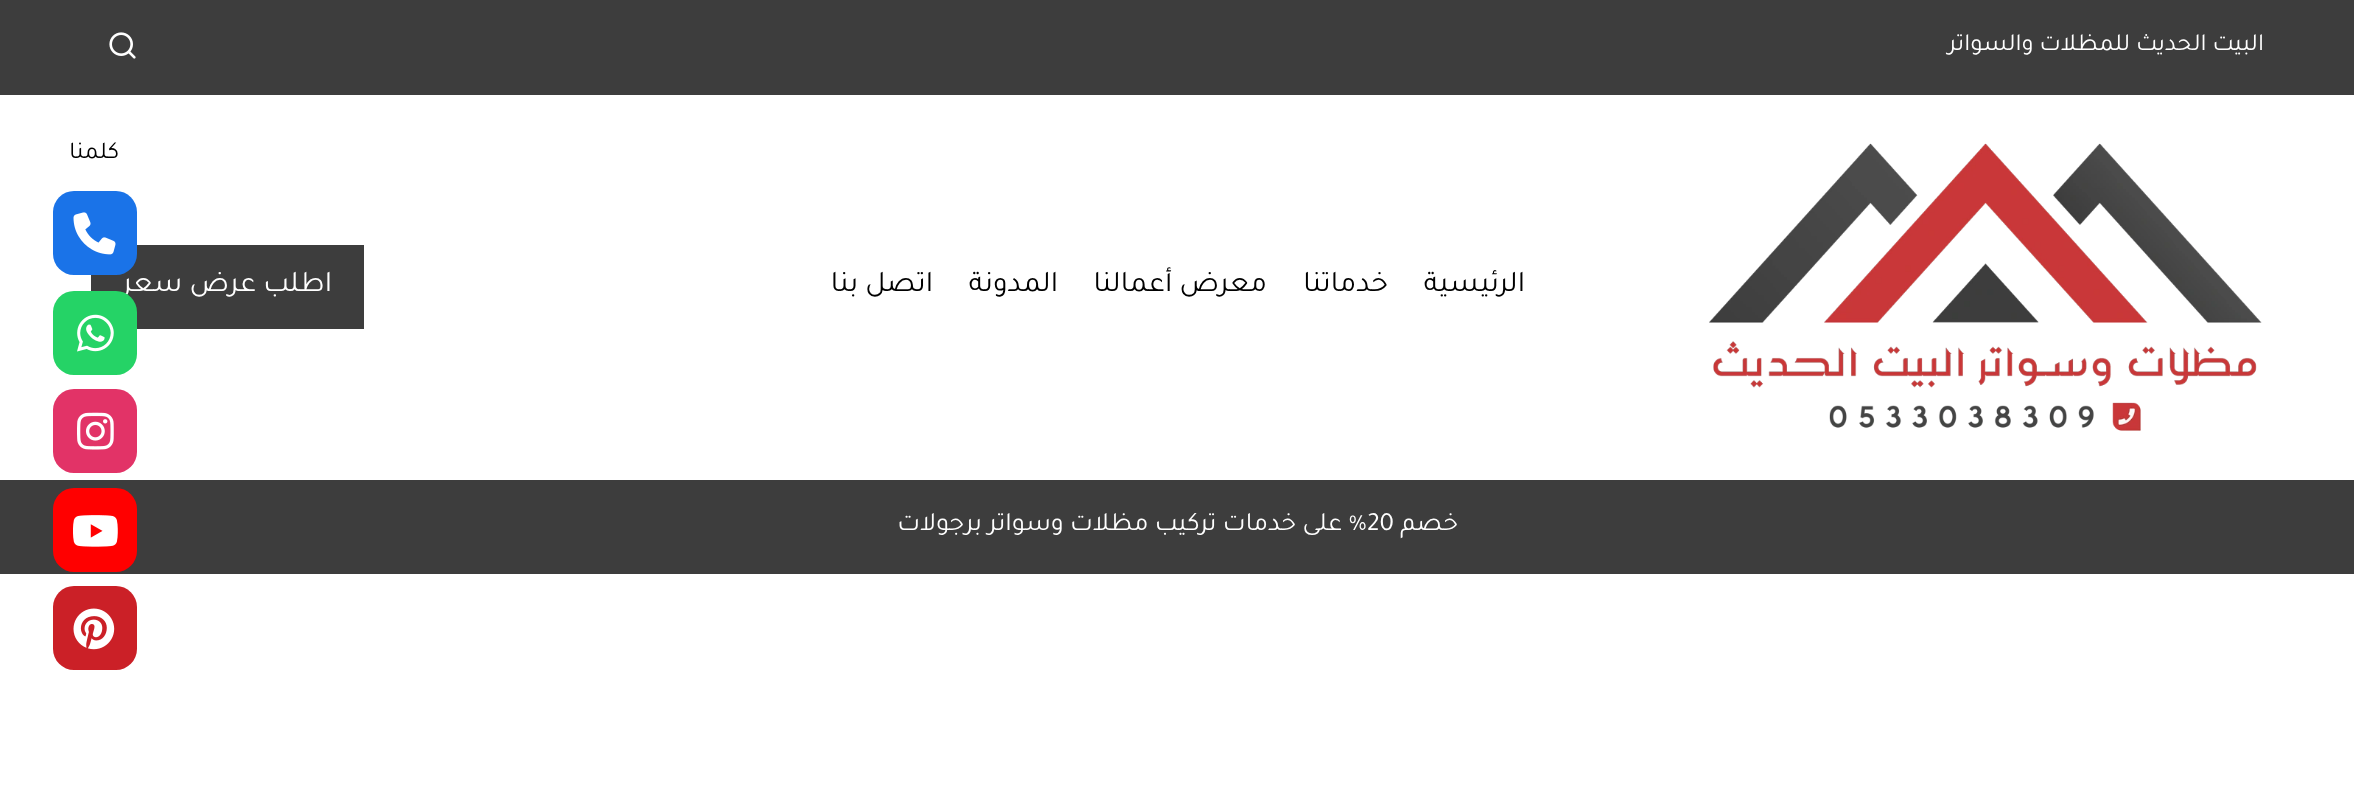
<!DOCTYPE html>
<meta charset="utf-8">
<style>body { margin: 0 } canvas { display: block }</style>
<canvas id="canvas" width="2354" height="807"></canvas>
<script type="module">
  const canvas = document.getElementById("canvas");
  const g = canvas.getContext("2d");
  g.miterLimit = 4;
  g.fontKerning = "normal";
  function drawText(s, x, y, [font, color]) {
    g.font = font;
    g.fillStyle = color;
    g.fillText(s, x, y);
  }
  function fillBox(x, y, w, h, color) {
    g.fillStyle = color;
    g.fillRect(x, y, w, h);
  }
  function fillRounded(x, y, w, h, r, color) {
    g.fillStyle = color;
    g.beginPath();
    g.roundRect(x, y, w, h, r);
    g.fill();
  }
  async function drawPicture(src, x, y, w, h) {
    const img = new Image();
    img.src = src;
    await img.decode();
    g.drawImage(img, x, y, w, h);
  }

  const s1 = ["24.5px Tajawal", "#FFFFFF"];
  const s2 = ["29.75px Tajawal", "#000000"];
  const s3 = ["29.75px Tajawal", "#FFFFFF"];
  const s4 = ["26.25px Tajawal", "#FFFFFF"];
  const s5 = ["24px Tajawal", "#000000"];

  fillBox(0, 0, 2354, 807, "#FFFFFF");
  fillBox(0, 0, 2354, 95, "#3D3D3D");
  g.direction = "rtl";
  drawText("البيت الحديث للمظلات والسواتر", 2264, 50, s1);
  await drawPicture("pic1.png", 109, 32, 27, 27);
  await drawPicture("pic2.png", 1709, 143, 553, 288);
  drawText("الرئيسية", 1525, 291, s2);
  drawText("خدماتنا", 1388, 291, s2);
  drawText("معرض أعمالنا", 1267, 291, s2);
  drawText("المدونة", 1058, 291, s2);
  drawText("اتصل بنا", 933, 291, s2);
  fillBox(91, 245, 273, 84, "#3D3D3D");
  drawText("اطلب عرض سعر", 332, 291, s3);
  fillBox(0, 480, 2354, 94, "#3D3D3D");
  drawText("خصم", 1458, 530, s4);
  g.direction = "ltr";
  drawText("20", 1367, 530, s4);
  g.direction = "rtl";
  drawText("% على خدمات تركيب مظلات وسواتر برجولات", 1367, 530, s4);
  drawText("كلمنا", 119, 158, s5);
  fillRounded(53, 191, 84, 84, 21, "#1A73E8");
  await drawPicture("pic3.png", 73, 212, 43, 43);
  fillRounded(53, 291, 84, 84, 21, "#25D366");
  await drawPicture("pic4.png", 77, 314, 37, 38);
  fillRounded(53, 389, 84, 84, 21, "#E23367");
  await drawPicture("pic5.png", 77, 412, 37, 38);
  fillRounded(53, 488, 84, 84, 21, "#FF0000");
  await drawPicture("pic6.png", 73, 515, 45, 32);
  fillRounded(53, 586, 84, 84, 21, "#CB2027");
  await drawPicture("pic7.png", 73, 608, 42, 42);
</script>
